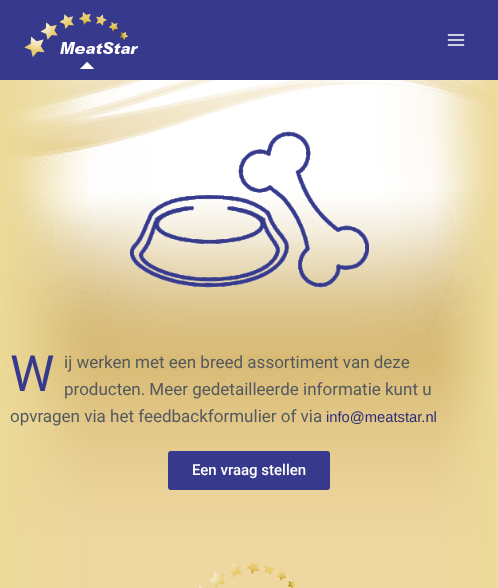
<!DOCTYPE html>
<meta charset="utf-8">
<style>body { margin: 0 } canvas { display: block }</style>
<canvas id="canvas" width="498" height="588"></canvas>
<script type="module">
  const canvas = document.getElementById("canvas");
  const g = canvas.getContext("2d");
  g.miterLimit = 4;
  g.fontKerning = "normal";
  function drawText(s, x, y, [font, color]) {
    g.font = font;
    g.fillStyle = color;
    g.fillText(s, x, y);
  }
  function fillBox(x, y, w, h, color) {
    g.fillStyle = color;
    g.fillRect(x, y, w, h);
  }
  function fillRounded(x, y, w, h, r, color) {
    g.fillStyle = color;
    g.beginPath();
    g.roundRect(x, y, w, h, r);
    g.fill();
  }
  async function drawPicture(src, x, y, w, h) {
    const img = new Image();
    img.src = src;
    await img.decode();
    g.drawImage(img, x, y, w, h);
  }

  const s1 = ["50px Roboto", "#36398C"];
  const s2 = ["17px Roboto", "#54595F"];
  const s3 = ["14.75px Liberation Sans", "#2A2D78"];
  const s4 = ["500 15px Roboto", "#FFFFFF"];

  fillBox(0, 0, 498, 588, "#FFFFFF");
  await drawPicture("pic1.png", 0, 80, 498, 508);
  fillBox(0, 0, 498, 80, "#36398C");
  await drawPicture("pic2.png", 24, 12, 115, 57);
  await drawPicture("pic3.png", 447, 34, 18, 12);
  await drawPicture("pic4.png", 130, 131, 239, 157);
  drawText("W", 10, 391, s1);
  drawText("ij werken met een breed assortiment van deze", 64, 368, s2);
  drawText("producten. Meer gedetailleerde informatie kunt u", 64, 395, s2);
  drawText("opvragen via het feedbackformulier of via", 10, 422, s2);
  drawText("info@meatstar.nl", 326, 422, s3);
  fillRounded(168, 451, 162, 39, 3, "#36398C");
  drawText("Een vraag stellen", 192, 475, s4);
  await drawPicture("pic5.png", 199, 561, 97, 27);
</script>
